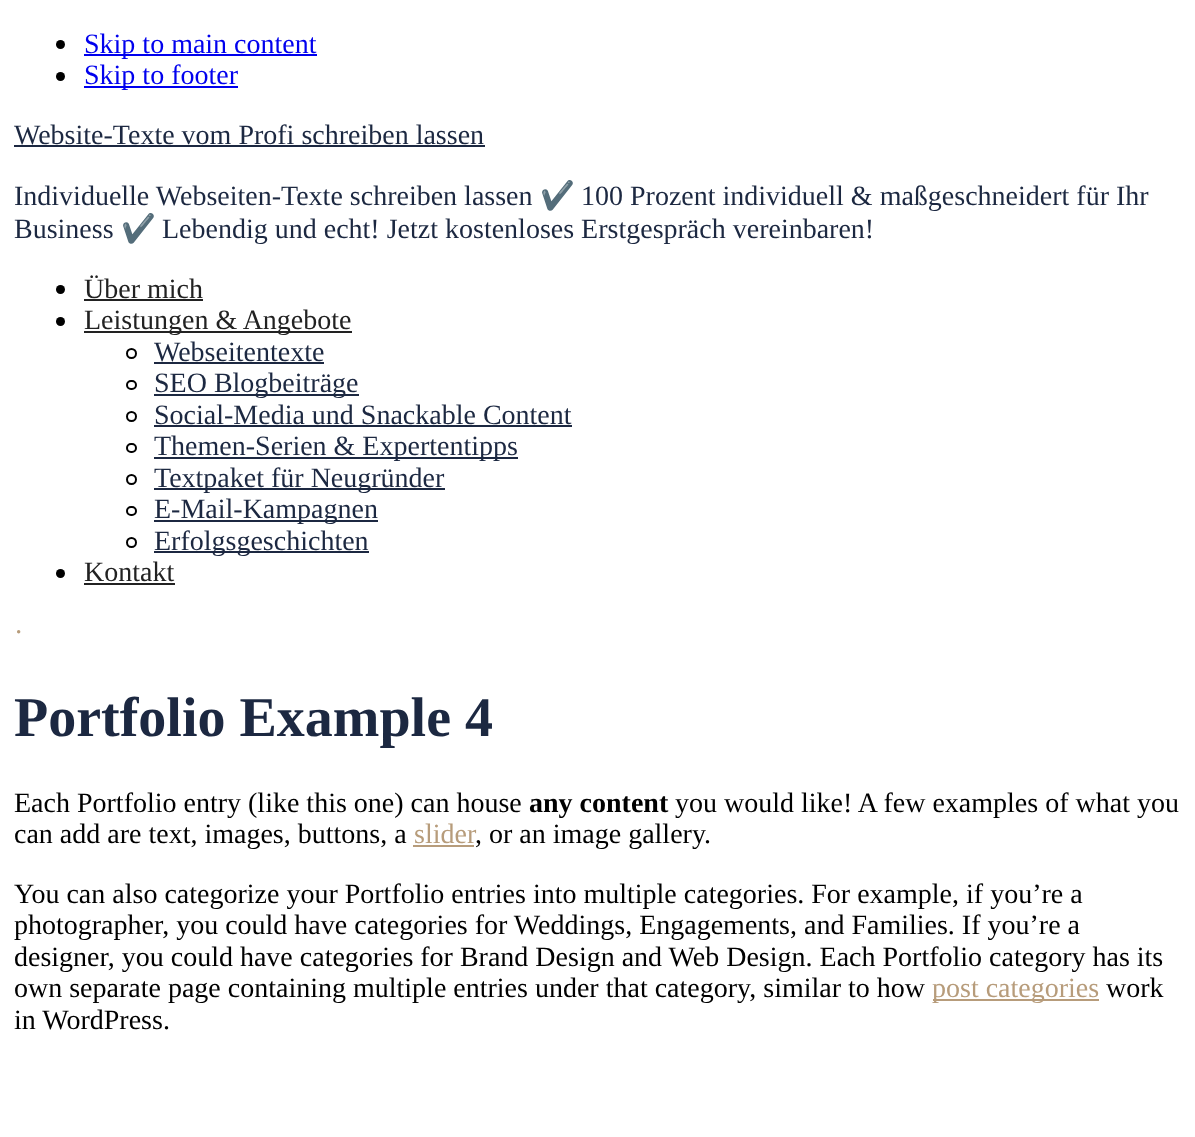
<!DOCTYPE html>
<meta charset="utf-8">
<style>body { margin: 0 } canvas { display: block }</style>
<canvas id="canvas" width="1195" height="1137"></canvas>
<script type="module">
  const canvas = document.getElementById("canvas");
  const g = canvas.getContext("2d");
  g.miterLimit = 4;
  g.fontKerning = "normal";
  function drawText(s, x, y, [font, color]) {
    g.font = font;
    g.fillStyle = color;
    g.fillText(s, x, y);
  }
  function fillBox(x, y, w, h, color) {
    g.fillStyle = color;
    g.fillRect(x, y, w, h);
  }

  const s1 = ["28px Liberation Serif", "#0000EE"];
  const s2 = ["28px Liberation Serif", "#1C2841"];
  const s3 = ["28px Noto Color Emoji", "#1C2841"];
  const s4 = ["28px Liberation Serif", "#222222"];
  const s5 = ["28px Liberation Serif", "#B79C7B"];
  const s6 = ["bold 56px Liberation Serif", "#1C2841"];
  const s7 = ["28px Liberation Serif", "#000000"];
  const s8 = ["bold 28px Liberation Serif", "#000000"];

  fillBox(0, 0, 1195, 1137, "#FFFFFF");
  g.fillStyle = "#000000";
  g.beginPath();
  g.arc(60.5, 44.5, 4.5, 0, Math.PI * 2);
  g.fill();
  fillBox(84, 54, 233, 2, "#0000EE");
  drawText("Skip to main content", 84, 53, s1);
  g.fillStyle = "#000000";
  g.beginPath();
  g.arc(60.5, 76.5, 4.5, 0, Math.PI * 2);
  g.fill();
  fillBox(84, 86, 154, 2, "#0000EE");
  drawText("Skip to footer", 84, 84, s1);
  drawText("Website-Texte vom Profi schreiben lassen", 14, 144, s2);
  fillBox(14, 145, 471, 2, "#1C2841");
  drawText("Individuelle Webseiten-Texte schreiben lassen", 14, 205, s2);
  drawText("✔️", 540, 205, s3);
  drawText("100 Prozent individuell & maßgeschneidert für Ihr", 581, 205, s2);
  drawText("Business", 14, 238, s2);
  drawText("✔️", 121, 238, s3);
  drawText("Lebendig und echt! Jetzt kostenloses Erstgespräch vereinbaren!", 162, 238, s2);
  g.fillStyle = "#000000";
  g.beginPath();
  g.arc(60.5, 289.5, 4.5, 0, Math.PI * 2);
  g.fill();
  drawText("Über mich", 84, 298, s4);
  fillBox(84, 299, 119, 2, "#222222");
  g.fillStyle = "#000000";
  g.beginPath();
  g.arc(60.5, 321.5, 4.5, 0, Math.PI * 2);
  g.fill();
  fillBox(84, 331, 268, 2, "#222222");
  drawText("Leistungen & Angebote", 84, 329, s4);
  g.beginPath();
  g.arc(131.5, 353.5, 4.5, 0, Math.PI * 2);
  g.strokeStyle = "#000000";
  g.lineWidth = 2;
  g.stroke();
  drawText("Webseitentexte", 154, 361, s2);
  fillBox(154, 362, 170, 2, "#1C2841");
  g.beginPath();
  g.roundRect(127, 381, 9, 8, 4);
  g.stroke();
  fillBox(154, 394, 205, 2, "#1C2841");
  drawText("SEO Blogbeiträge", 154, 392, s2);
  g.beginPath();
  g.arc(131.5, 416.5, 4.5, 0, Math.PI * 2);
  g.stroke();
  drawText("Social-Media und Snackable Content", 154, 424, s2);
  fillBox(154, 425, 418, 2, "#1C2841");
  g.beginPath();
  g.roundRect(127, 444, 9, 8, 4);
  g.stroke();
  fillBox(154, 457, 364, 2, "#1C2841");
  drawText("Themen-Serien & Expertentipps", 154, 455, s2);
  g.beginPath();
  g.arc(131.5, 479.5, 4.5, 0, Math.PI * 2);
  g.stroke();
  fillBox(154, 488, 291, 2, "#1C2841");
  drawText("Textpaket für Neugründer", 154, 487, s2);
  g.beginPath();
  g.roundRect(127, 507, 9, 8, 4);
  g.stroke();
  fillBox(154, 520, 224, 2, "#1C2841");
  drawText("E-Mail-Kampagnen", 154, 518, s2);
  g.beginPath();
  g.arc(131.5, 542.5, 4.5, 0, Math.PI * 2);
  g.stroke();
  fillBox(154, 551, 215, 2, "#1C2841");
  drawText("Erfolgsgeschichten", 154, 550, s2);
  g.fillStyle = "#000000";
  g.beginPath();
  g.arc(60.5, 573.5, 4.5, 0, Math.PI * 2);
  g.fill();
  drawText("Kontakt", 84, 581, s4);
  fillBox(84, 583, 91, 2, "#222222");
  drawText("·", 14, 641, s5);
  drawText("Portfolio Example 4", 14, 736, s6);
  drawText("Each Portfolio entry (like this one) can house", 14, 812, s7);
  drawText("any content", 529, 812, s8);
  drawText("you would like! A few examples of what you", 675, 812, s7);
  drawText("can add are text, images, buttons, a", 14, 843, s7);
  drawText("slider", 414, 843, s5);
  fillBox(413, 845, 61, 2, "#B79C7B");
  drawText(", or an image gallery.", 475, 843, s7);
  drawText("You can also categorize your Portfolio entries into multiple categories. For example, if you’re a", 14, 903, s7);
  drawText("photographer, you could have categories for Weddings, Engagements, and Families. If you’re a", 14, 934, s7);
  drawText("designer, you could have categories for Brand Design and Web Design. Each Portfolio category has its", 14, 966, s7);
  drawText("own separate page containing multiple entries under that category, similar to how", 14, 997, s7);
  fillBox(933, 999, 166, 2, "#B79C7B");
  drawText("post categories", 932, 997, s5);
  drawText("work", 1106, 997, s7);
  drawText("in WordPress.", 14, 1029, s7);
</script>
